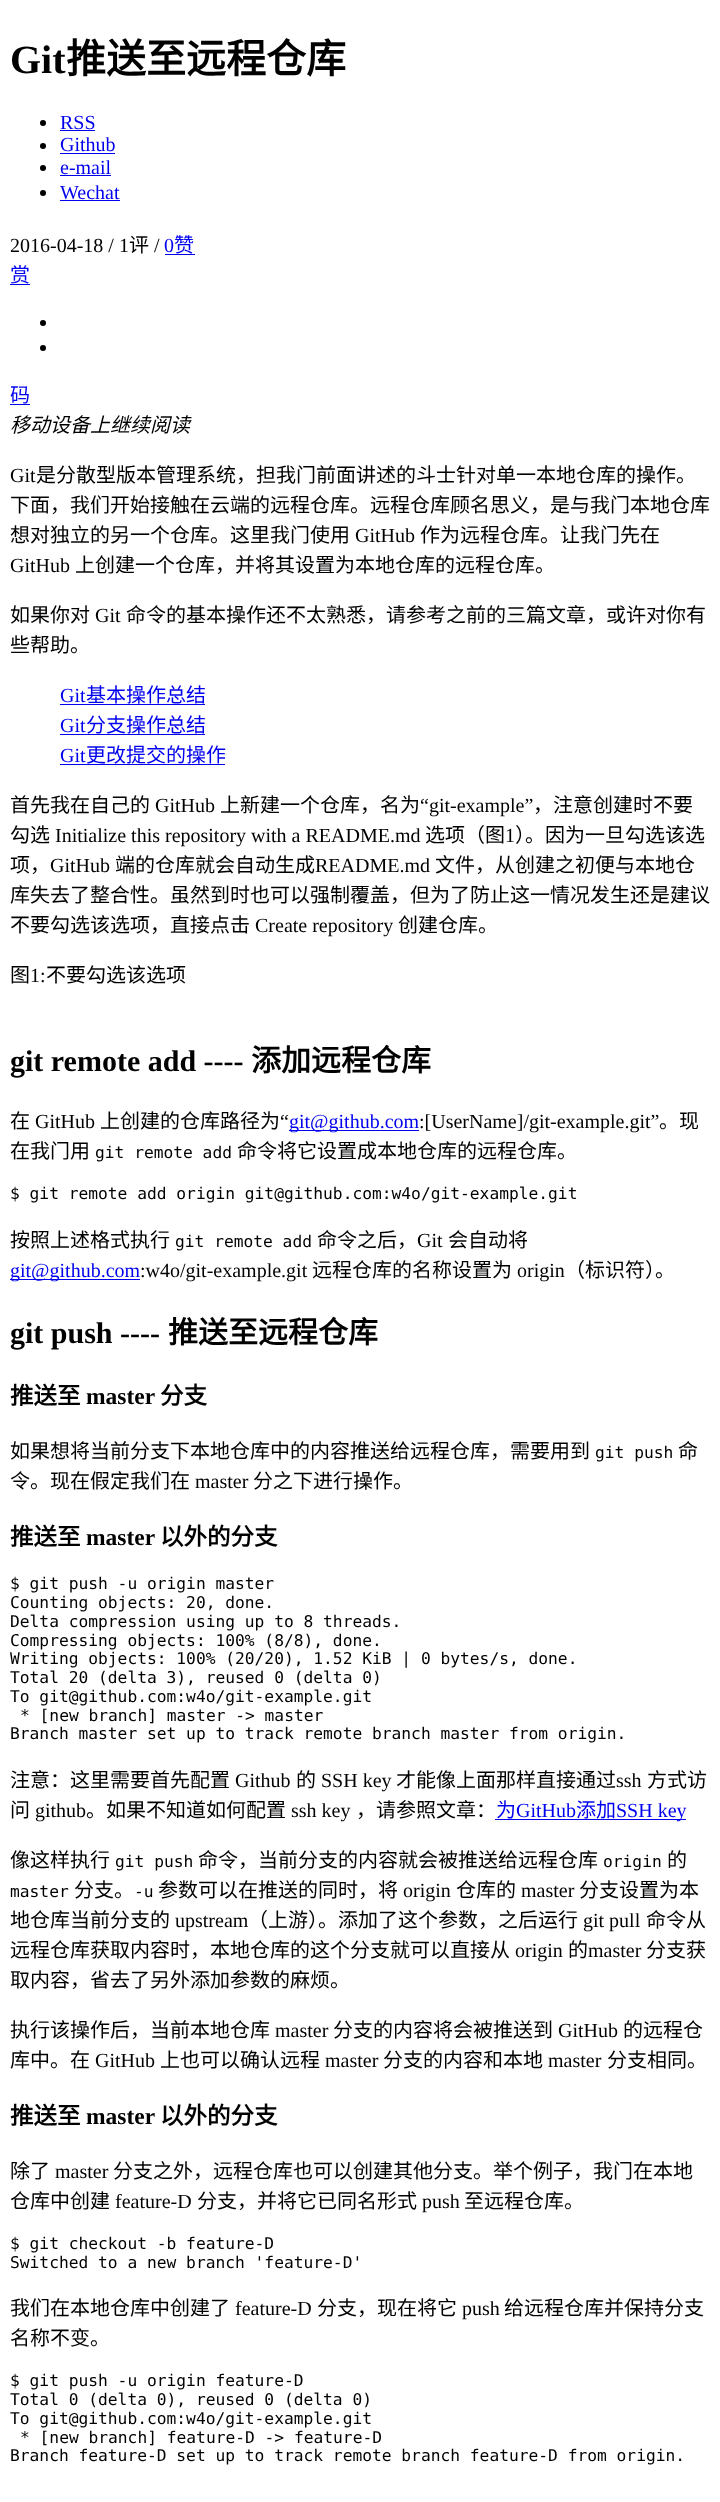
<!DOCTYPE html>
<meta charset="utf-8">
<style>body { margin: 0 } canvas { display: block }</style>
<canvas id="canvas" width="720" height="2502"></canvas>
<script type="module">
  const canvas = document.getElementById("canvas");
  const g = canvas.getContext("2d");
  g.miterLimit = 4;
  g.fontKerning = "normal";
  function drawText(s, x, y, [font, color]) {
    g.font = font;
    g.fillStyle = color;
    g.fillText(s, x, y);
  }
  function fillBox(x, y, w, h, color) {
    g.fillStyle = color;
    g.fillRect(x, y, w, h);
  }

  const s1 = ["bold 40px Liberation Serif", "#000000"];
  const s2 = ["bold 40px Noto Sans CJK SC", "#000000"];
  const s3 = ["20px Liberation Serif", "#0000EE"];
  const s4 = ["20px Liberation Serif", "#000000"];
  const s5 = ["20px Noto Sans CJK SC", "#000000"];
  const s6 = ["20px Noto Sans CJK SC", "#0000EE"];
  const s7 = ["italic 20px Noto Sans CJK SC", "#000000"];
  const s8 = ["bold 30px Liberation Serif", "#000000"];
  const s9 = ["bold 30px Noto Sans CJK SC", "#000000"];
  const s10 = ["16.25px DejaVu Sans Mono", "#000000"];
  const s11 = ["bold 23.5px Noto Sans CJK SC", "#000000"];
  const s12 = ["bold 23.5px Liberation Serif", "#000000"];

  fillBox(0, 0, 720, 2502, "#FFFFFF");
  drawText("Git", 10, 73, s1);
  drawText("推送至远程仓库", 66, 73, s2);
  g.beginPath();
  g.arc(43, 123, 3, 0, Math.PI * 2);
  g.fill();
  drawText("RSS", 60, 129, s3);
  fillBox(60, 130, 35, 1, "#0000EE");
  g.fillStyle = "#000000";
  g.beginPath();
  g.arc(43, 146, 3, 0, Math.PI * 2);
  g.fill();
  drawText("Github", 60, 151, s3);
  fillBox(60, 153, 55, 1, "#0000EE");
  g.fillStyle = "#000000";
  g.beginPath();
  g.arc(43, 168, 3, 0, Math.PI * 2);
  g.fill();
  drawText("e-mail", 60, 174, s3);
  fillBox(60, 175, 51, 1, "#0000EE");
  g.fillStyle = "#000000";
  g.beginPath();
  g.arc(43, 193, 3, 0, Math.PI * 2);
  g.fill();
  drawText("Wechat", 60, 199, s3);
  fillBox(60, 200, 60, 1, "#0000EE");
  drawText("2016-04-18 / 1", 10, 252, s4);
  drawText("评", 129, 252, s5);
  drawText("/", 154, 252, s4);
  drawText("0", 164, 252, s3);
  fillBox(165, 254, 30, 1, "#0000EE");
  drawText("赞", 174, 252, s6);
  drawText("赏", 10, 282, s6);
  fillBox(10, 284, 20, 1, "#0000EE");
  g.fillStyle = "#000000";
  g.beginPath();
  g.arc(43, 323, 3, 0, Math.PI * 2);
  g.fill();
  g.beginPath();
  g.arc(43, 348, 3, 0, Math.PI * 2);
  g.fill();
  drawText("码", 10, 402, s6);
  fillBox(10, 404, 20, 1, "#0000EE");
  drawText("移动设备上继续阅读", 10, 432, s7);
  drawText("Git", 10, 482, s4);
  drawText("是分散型版本管理系统，担我门前面讲述的斗士针对单一本地仓库的操作。", 36, 482, s5);
  drawText("下面，我们开始接触在云端的远程仓库。远程仓库顾名思义，是与我门本地仓库", 10, 512, s5);
  drawText("想对独立的另一个仓库。这里我门使用", 10, 542, s5);
  drawText("GitHub", 355, 542, s4);
  drawText("作为远程仓库。让我门先在", 420, 542, s5);
  drawText("GitHub", 10, 572, s4);
  drawText("上创建一个仓库，并将其设置为本地仓库的远程仓库。", 75, 572, s5);
  drawText("如果你对", 10, 622, s5);
  drawText("Git", 95, 622, s4);
  drawText("命令的基本操作还不太熟悉，请参考之前的三篇文章，或许对你有", 126, 622, s5);
  drawText("些帮助。", 10, 652, s5);
  drawText("Git", 60, 702, s3);
  fillBox(60, 704, 145, 1, "#0000EE");
  drawText("基本操作总结", 86, 702, s6);
  drawText("Git", 60, 732, s3);
  fillBox(60, 734, 145, 1, "#0000EE");
  drawText("分支操作总结", 86, 732, s6);
  drawText("Git", 60, 762, s3);
  fillBox(60, 764, 165, 1, "#0000EE");
  drawText("更改提交的操作", 86, 762, s6);
  drawText("首先我在自己的", 10, 812, s5);
  drawText("GitHub", 155, 812, s4);
  drawText("上新建一个仓库，名为", 220, 812, s5);
  drawText("“git-example”", 420, 812, s4);
  drawText("，注意创建时不要", 533, 812, s5);
  drawText("勾选", 10, 842, s5);
  drawText("Initialize this repository with a README.md", 55, 842, s4);
  drawText("选项（图", 425, 842, s5);
  drawText("1", 505, 842, s4);
  drawText("）。因为一旦勾选该选", 515, 842, s5);
  drawText("项，", 10, 872, s5);
  drawText("GitHub", 50, 872, s4);
  drawText("端的仓库就会自动生成", 115, 872, s5);
  drawText("README.md", 315, 872, s4);
  drawText("文件，从创建之初便与本地仓", 435, 872, s5);
  drawText("库失去了整合性。虽然到时也可以强制覆盖，但为了防止这一情况发生还是建议", 10, 902, s5);
  drawText("不要勾选该选项，直接点击", 10, 932, s5);
  drawText("Create repository", 255, 932, s4);
  drawText("创建仓库。", 398, 932, s5);
  drawText("图", 10, 982, s5);
  drawText("1:", 30, 982, s4);
  drawText("不要勾选该选项", 46, 982, s5);
  drawText("git remote add ----", 10, 1071, s8);
  drawText("添加远程仓库", 251, 1071, s9);
  drawText("在", 10, 1128, s5);
  drawText("GitHub", 35, 1128, s4);
  drawText("上创建的仓库路径为", 100, 1128, s5);
  drawText("“", 280, 1128, s4);
  fillBox(289, 1130, 130, 1, "#0000EE");
  drawText("git@github.com", 289, 1128, s3);
  drawText(":[UserName]/git-example.git”", 419, 1128, s4);
  drawText("。现", 659, 1128, s5);
  drawText("在我门用", 10, 1158, s5);
  drawText("git remote add", 95, 1158, s10);
  drawText("命令将它设置成本地仓库的远程仓库。", 237, 1158, s5);
  drawText("$ git remote add origin git@github.com:w4o/git-example.git", 10, 1199, s10);
  drawText("按照上述格式执行", 10, 1247, s5);
  drawText("git remote add", 175, 1247, s10);
  drawText("命令之后，", 317, 1247, s5);
  drawText("Git", 417, 1247, s4);
  drawText("会自动将", 448, 1247, s5);
  fillBox(10, 1279, 130, 1, "#0000EE");
  drawText("git@github.com", 10, 1277, s3);
  drawText(":w4o/git-example.git", 140, 1277, s4);
  drawText("远程仓库的名称设置为", 312, 1277, s5);
  drawText("origin", 517, 1277, s4);
  drawText("（标识符）。", 565, 1277, s5);
  drawText("git push ----", 10, 1343, s8);
  drawText("推送至远程仓库", 168, 1343, s9);
  drawText("推送至", 10, 1404, s11);
  drawText("master", 86, 1404, s12);
  drawText("分支", 160, 1404, s11);
  drawText("如果想将当前分支下本地仓库中的内容推送给远程仓库，需要用到", 10, 1458, s5);
  drawText("git push", 595, 1458, s10);
  drawText("命", 678, 1458, s5);
  drawText("令。现在假定我们在", 10, 1488, s5);
  drawText("master", 195, 1488, s4);
  drawText("分之下进行操作。", 253, 1488, s5);
  drawText("推送至", 10, 1545, s11);
  drawText("master", 86, 1545, s12);
  drawText("以外的分支", 160, 1545, s11);
  drawText("$ git push -u origin master", 10, 1589, s10);
  drawText("Counting objects: 20, done.", 10, 1608, s10);
  drawText("Delta compression using up to 8 threads.", 10, 1627, s10);
  drawText("Compressing objects: 100% (8/8), done.", 10, 1646, s10);
  drawText("Writing objects: 100% (20/20), 1.52 KiB | 0 bytes/s, done.", 10, 1664, s10);
  drawText("Total 20 (delta 3), reused 0 (delta 0)", 10, 1683, s10);
  drawText("To git@github.com:w4o/git-example.git", 10, 1702, s10);
  drawText("* [new branch] master -> master", 20, 1721, s10);
  drawText("Branch master set up to track remote branch master from origin.", 10, 1739, s10);
  drawText("注意：这里需要首先配置", 10, 1787, s5);
  drawText("Github", 235, 1787, s4);
  drawText("的", 296, 1787, s5);
  drawText("SSH key", 321, 1787, s4);
  drawText("才能像上面那样直接通过", 396, 1787, s5);
  drawText("ssh", 616, 1787, s4);
  drawText("方式访", 647, 1787, s5);
  drawText("问", 10, 1817, s5);
  drawText("github", 35, 1817, s4);
  drawText("。如果不知道如何配置", 86, 1817, s5);
  drawText("ssh key", 291, 1817, s4);
  drawText("，请参照文章：", 356, 1817, s5);
  drawText("为", 496, 1817, s6);
  drawText("GitHub", 516, 1817, s3);
  drawText("添加", 576, 1817, s6);
  fillBox(495, 1819, 191, 1, "#0000EE");
  drawText("SSH key", 616, 1817, s3);
  drawText("像这样执行", 10, 1867, s5);
  drawText("git push", 115, 1867, s10);
  drawText("命令，当前分支的内容就会被推送给远程仓库", 198, 1867, s5);
  drawText("origin", 603, 1867, s10);
  drawText("的", 667, 1867, s5);
  drawText("master", 10, 1897, s10);
  drawText("分支。", 74, 1897, s5);
  drawText("-u", 134, 1897, s10);
  drawText("参数可以在推送的同时，将", 158, 1897, s5);
  drawText("origin", 403, 1897, s4);
  drawText("仓库的", 456, 1897, s5);
  drawText("master", 521, 1897, s4);
  drawText("分支设置为本", 579, 1897, s5);
  drawText("地仓库当前分支的", 10, 1927, s5);
  drawText("upstream", 175, 1927, s4);
  drawText("（上游）。添加了这个参数，之后运行", 248, 1927, s5);
  drawText("git pull", 583, 1927, s4);
  drawText("命令从", 646, 1927, s5);
  drawText("远程仓库获取内容时，本地仓库的这个分支就可以直接从", 10, 1957, s5);
  drawText("origin", 515, 1957, s4);
  drawText("的", 568, 1957, s5);
  drawText("master", 588, 1957, s4);
  drawText("分支获", 646, 1957, s5);
  drawText("取内容，省去了另外添加参数的麻烦。", 10, 1987, s5);
  drawText("执行该操作后，当前本地仓库", 10, 2037, s5);
  drawText("master", 275, 2037, s4);
  drawText("分支的内容将会被推送到", 333, 2037, s5);
  drawText("GitHub", 558, 2037, s4);
  drawText("的远程仓", 623, 2037, s5);
  drawText("库中。在", 10, 2067, s5);
  drawText("GitHub", 95, 2067, s4);
  drawText("上也可以确认远程", 160, 2067, s5);
  drawText("master", 325, 2067, s4);
  drawText("分支的内容和本地", 383, 2067, s5);
  drawText("master", 548, 2067, s4);
  drawText("分支相同。", 607, 2067, s5);
  drawText("推送至", 10, 2124, s11);
  drawText("master", 86, 2124, s12);
  drawText("以外的分支", 160, 2124, s11);
  drawText("除了", 10, 2178, s5);
  drawText("master", 55, 2178, s4);
  drawText("分支之外，远程仓库也可以创建其他分支。举个例子，我门在本地", 113, 2178, s5);
  drawText("仓库中创建", 10, 2208, s5);
  drawText("feature-D", 115, 2208, s4);
  drawText("分支，并将它已同名形式", 197, 2208, s5);
  drawText("push", 422, 2208, s4);
  drawText("至远程仓库。", 464, 2208, s5);
  drawText("$ git checkout -b feature-D", 10, 2249, s10);
  drawText("Switched to a new branch 'feature-D'", 10, 2268, s10);
  drawText("我们在本地仓库中创建了", 10, 2315, s5);
  drawText("feature-D", 235, 2315, s4);
  drawText("分支，现在将它", 317, 2315, s5);
  drawText("push", 462, 2315, s4);
  drawText("给远程仓库并保持分支", 504, 2315, s5);
  drawText("名称不变。", 10, 2345, s5);
  drawText("$ git push -u origin feature-D", 10, 2386, s10);
  drawText("Total 0 (delta 0), reused 0 (delta 0)", 10, 2405, s10);
  drawText("To git@github.com:w4o/git-example.git", 10, 2424, s10);
  drawText("* [new branch] feature-D -> feature-D", 20, 2443, s10);
  drawText("Branch feature-D set up to track remote branch feature-D from origin.", 10, 2461, s10);
</script>
